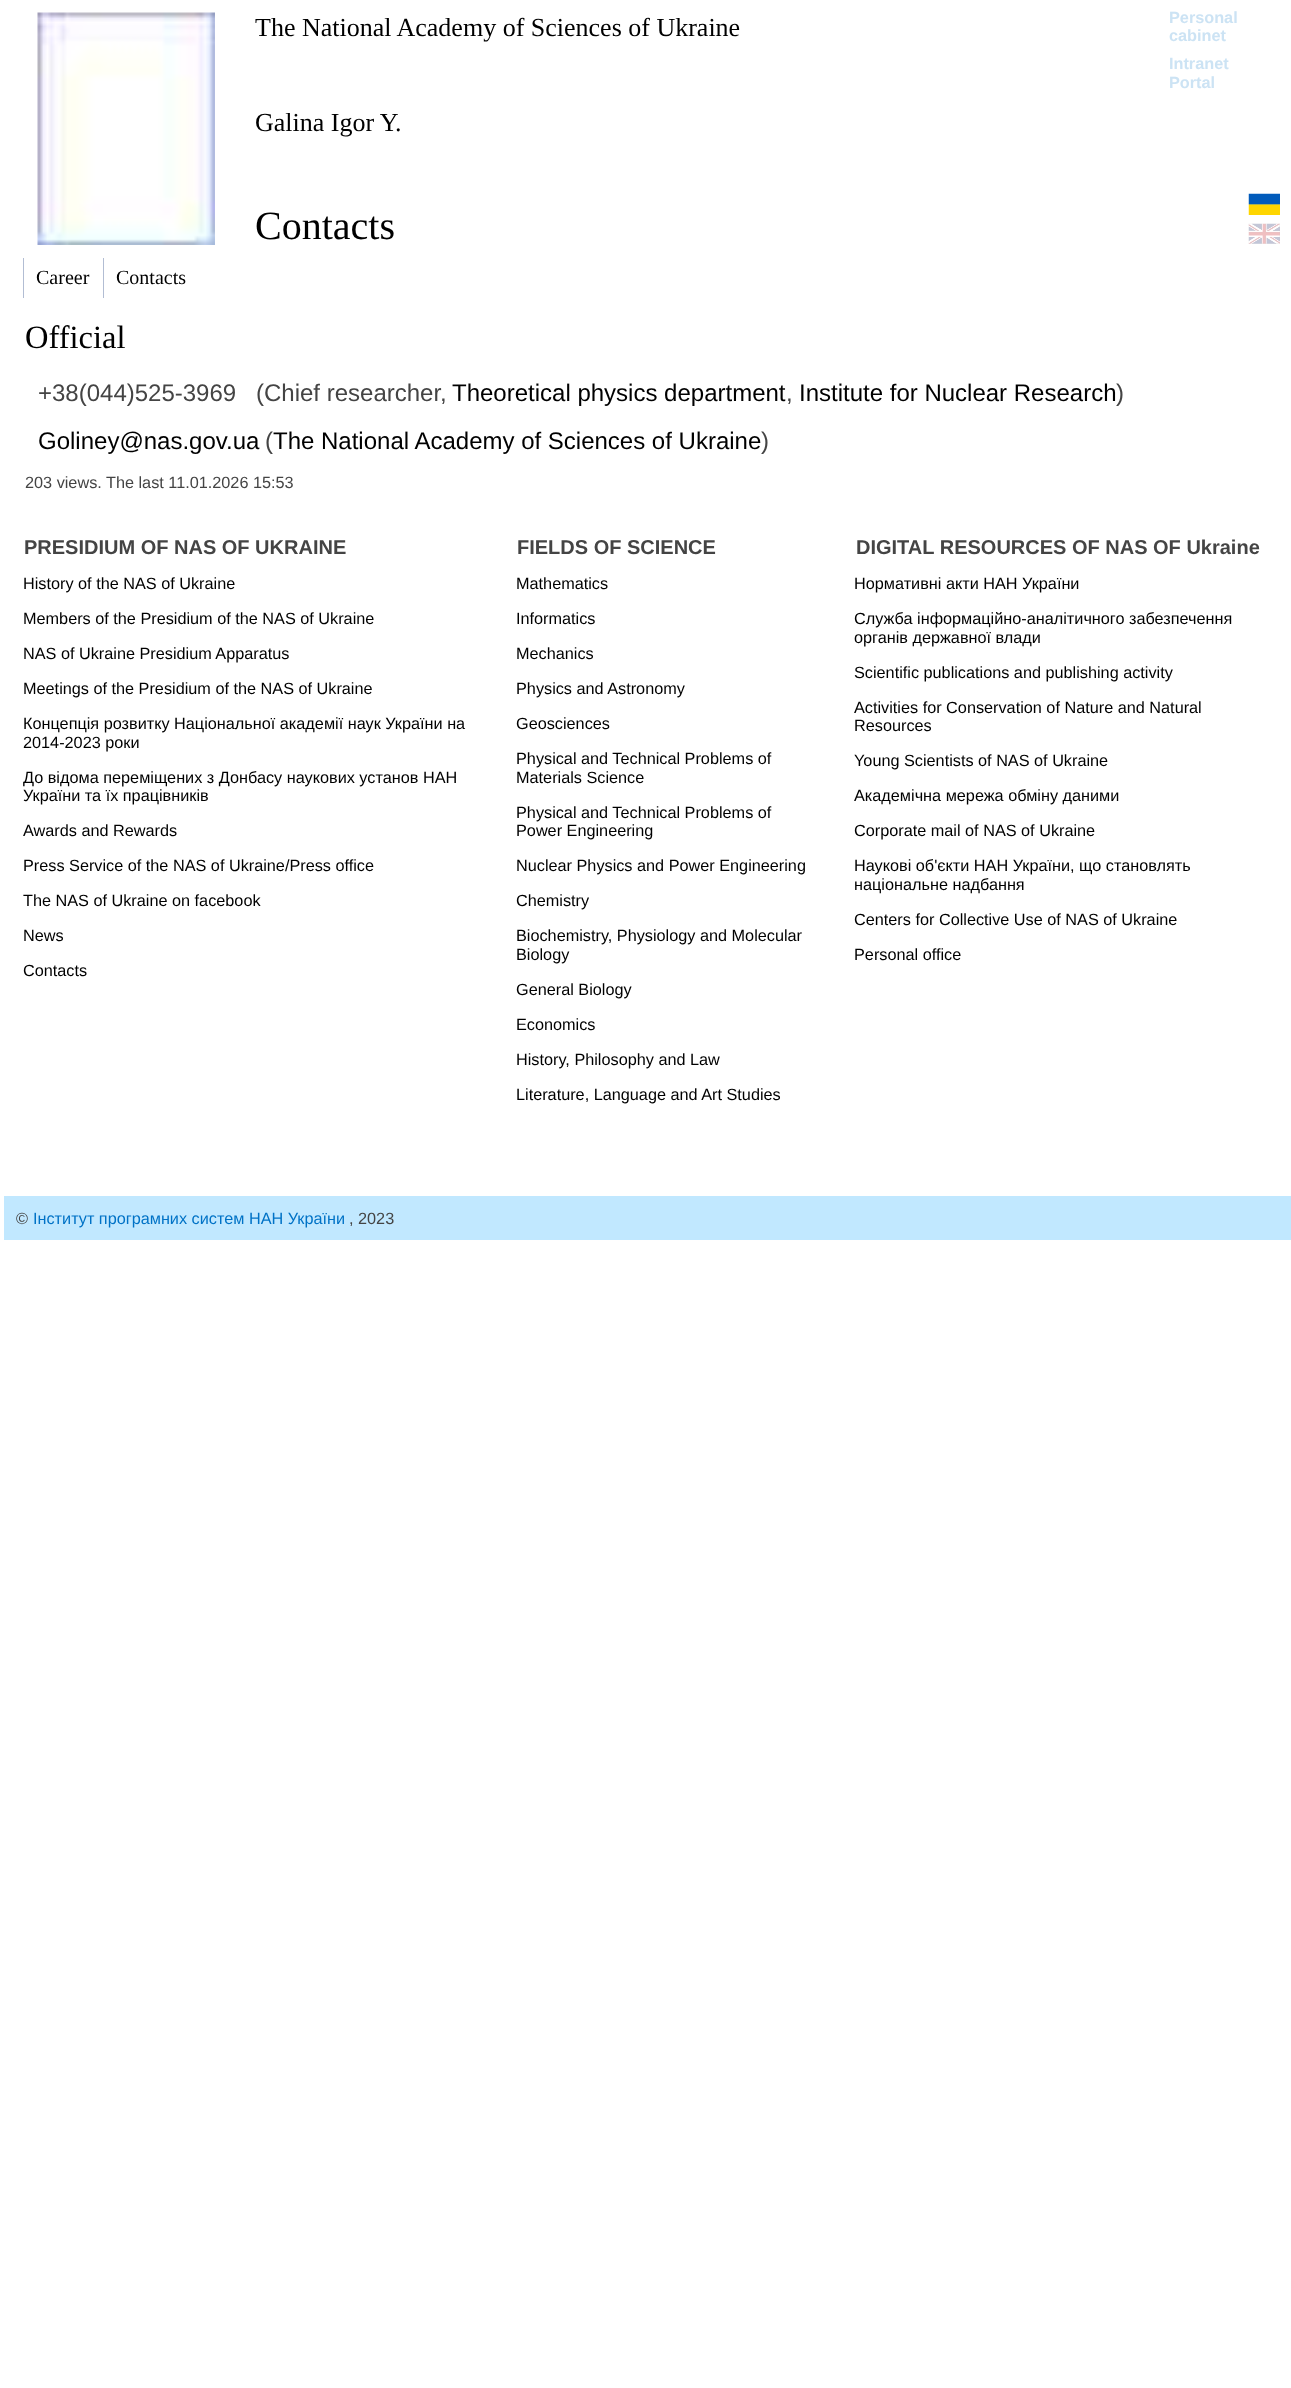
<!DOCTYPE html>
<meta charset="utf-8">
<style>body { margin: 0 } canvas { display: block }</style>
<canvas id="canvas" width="1291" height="2388"></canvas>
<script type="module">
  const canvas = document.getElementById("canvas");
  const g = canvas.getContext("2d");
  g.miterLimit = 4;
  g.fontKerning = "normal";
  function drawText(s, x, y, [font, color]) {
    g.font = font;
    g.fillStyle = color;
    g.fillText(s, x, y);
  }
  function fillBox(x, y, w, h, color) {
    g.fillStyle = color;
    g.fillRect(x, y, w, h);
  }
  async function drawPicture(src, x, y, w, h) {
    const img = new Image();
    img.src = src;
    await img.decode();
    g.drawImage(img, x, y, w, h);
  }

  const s1 = ["26px Liberation Serif", "#000000"];
  const s2 = ["bold 16.25px Liberation Sans", "#CCE3F4"];
  const s3 = ["40px Liberation Serif", "#000000"];
  const s4 = ["20px Liberation Serif", "#000000"];
  const s5 = ["32.5px Liberation Serif", "#000000"];
  const s6 = ["24px Liberation Sans", "#444444"];
  const s7 = ["24px Liberation Sans", "#000000"];
  const s8 = ["16.25px Liberation Sans", "#444444"];
  const s9 = ["bold 20px Liberation Sans", "#444444"];
  const s10 = ["16.25px Liberation Sans", "#000000"];
  const s11 = ["16.25px Liberation Sans", "#0072C6"];

  fillBox(0, 0, 1291, 2388, "#FFFFFF");
  await drawPicture("pic1.png", 37, 12, 178, 233);
  drawText("The National Academy of Sciences of Ukraine", 255, 36, s1);
  drawText("Personal", 1169, 23, s2);
  drawText("cabinet", 1169, 41, s2);
  drawText("Intranet", 1169, 69, s2);
  drawText("Portal", 1169, 88, s2);
  drawText("Galina Igor Y.", 255, 131, s1);
  await drawPicture("pic2.png", 1248, 193, 32, 22);
  await drawPicture("pic3.png", 1248, 223, 32, 21);
  drawText("Contacts", 255, 239, s3);
  fillBox(23, 258, 1, 40, "#B2BDD3");
  drawText("Career", 36, 284, s4);
  fillBox(103, 258, 1, 40, "#B2BDD3");
  drawText("Contacts", 116, 284, s4);
  drawText("Official", 25, 348, s5);
  drawText("+38(044)525-3969", 38, 401, s6);
  drawText("(Chief researcher,", 256, 401, s6);
  drawText("Theoretical physics department", 452, 401, s7);
  drawText(",", 786, 401, s6);
  drawText("Institute for Nuclear Research", 799, 401, s7);
  drawText(")", 1116, 401, s6);
  drawText("Goliney@nas.gov.ua", 38, 449, s7);
  drawText("(", 265, 449, s6);
  drawText("The National Academy of Sciences of Ukraine", 273, 449, s7);
  drawText(")", 761, 449, s6);
  drawText("203 views. The last 11.01.2026 15:53", 25, 488, s8);
  drawText("PRESIDIUM OF NAS OF UKRAINE", 24, 554, s9);
  drawText("History of the NAS of Ukraine", 23, 589, s10);
  drawText("Members of the Presidium of the NAS of Ukraine", 23, 624, s10);
  drawText("NAS of Ukraine Presidium Apparatus", 23, 659, s10);
  drawText("Meetings of the Presidium of the NAS of Ukraine", 23, 694, s10);
  drawText("Концепція розвитку Національної академії наук України на", 23, 729, s10);
  drawText("2014-2023 роки", 23, 748, s10);
  drawText("До відома переміщених з Донбасу наукових установ НАН", 23, 783, s10);
  drawText("України та їх працівників", 23, 801, s10);
  drawText("Awards and Rewards", 23, 836, s10);
  drawText("Press Service of the NAS of Ukraine/Press office", 23, 871, s10);
  drawText("The NAS of Ukraine on facebook", 23, 906, s10);
  drawText("News", 23, 941, s10);
  drawText("Сontacts", 23, 976, s10);
  drawText("FIELDS OF SCIENCE", 517, 554, s9);
  drawText("Mathematics", 516, 589, s10);
  drawText("Informatics", 516, 624, s10);
  drawText("Mechanics", 516, 659, s10);
  drawText("Physics and Astronomy", 516, 694, s10);
  drawText("Geosciences", 516, 729, s10);
  drawText("Physical and Technical Problems of", 516, 764, s10);
  drawText("Materials Science", 516, 783, s10);
  drawText("Physical and Technical Problems of", 516, 818, s10);
  drawText("Power Engineering", 516, 836, s10);
  drawText("Nuclear Physics and Power Engineering", 516, 871, s10);
  drawText("Chemistry", 516, 906, s10);
  drawText("Biochemistry, Physiology and Molecular", 516, 941, s10);
  drawText("Biology", 516, 960, s10);
  drawText("General Biology", 516, 995, s10);
  drawText("Economics", 516, 1030, s10);
  drawText("History, Philosophy and Law", 516, 1065, s10);
  drawText("Literature, Language and Art Studies", 516, 1100, s10);
  drawText("DIGITAL RESOURCES OF NAS OF Ukraine", 856, 554, s9);
  drawText("Нормативні акти НАН України", 854, 589, s10);
  drawText("Служба інформаційно-аналітичного забезпечення", 854, 624, s10);
  drawText("органів державної влади", 854, 643, s10);
  drawText("Scientific publications and publishing activity", 854, 678, s10);
  drawText("Activities for Conservation of Nature and Natural", 854, 713, s10);
  drawText("Resources", 854, 731, s10);
  drawText("Young Scientists of NAS of Ukraine", 854, 766, s10);
  drawText("Академічна мережа обміну даними", 854, 801, s10);
  drawText("Corporate mail of NAS of Ukraine", 854, 836, s10);
  drawText("Наукові об'єкти НАН України, що становлять", 854, 871, s10);
  drawText("національне надбання", 854, 890, s10);
  drawText("Centers for Collective Use of NAS of Ukraine", 854, 925, s10);
  drawText("Personal office", 854, 960, s10);
  fillBox(4, 1196, 1287, 44, "#C1E8FF");
  drawText("©", 16, 1224, s8);
  drawText("Інститут програмних систем НАН України", 33, 1224, s11);
  drawText(", 2023", 349, 1224, s8);
</script>
